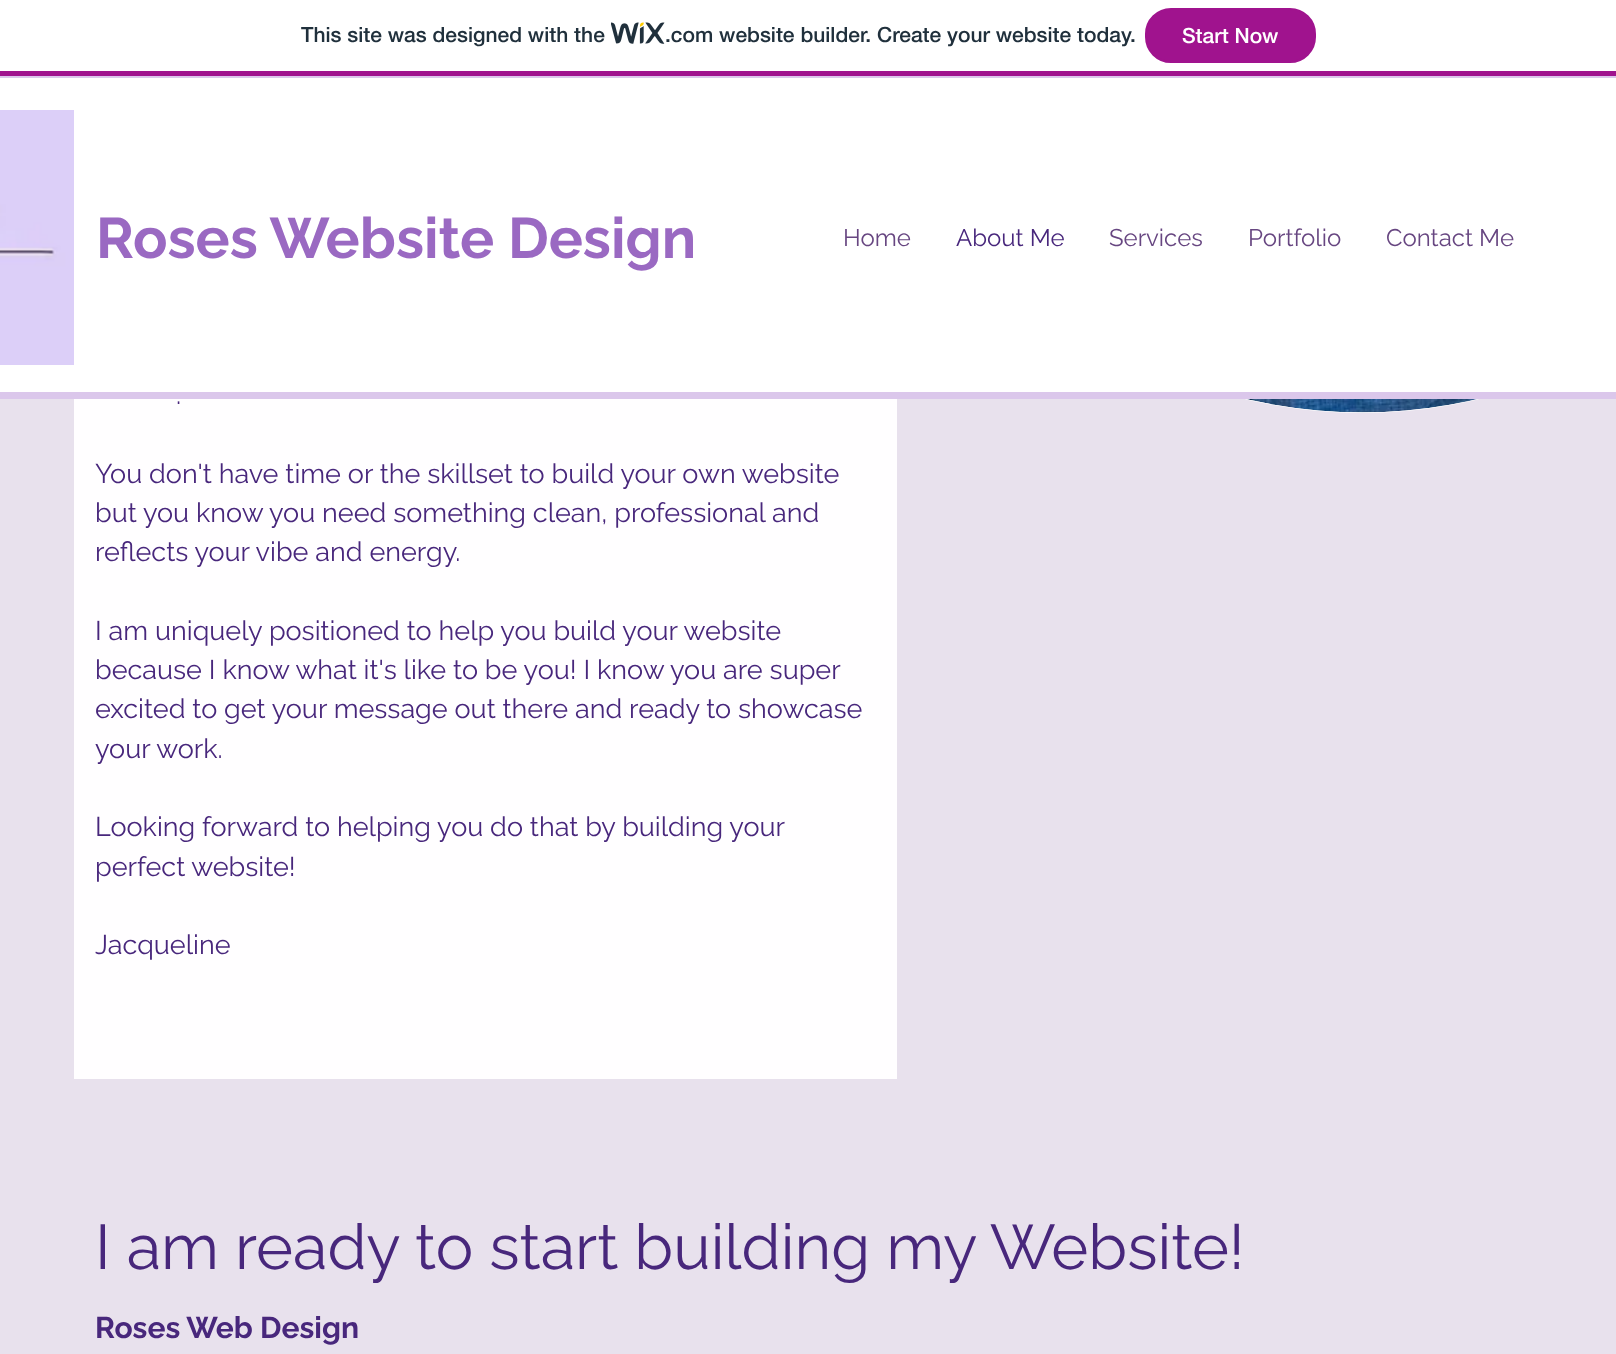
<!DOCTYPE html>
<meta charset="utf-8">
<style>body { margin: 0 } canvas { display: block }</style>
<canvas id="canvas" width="1616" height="1354"></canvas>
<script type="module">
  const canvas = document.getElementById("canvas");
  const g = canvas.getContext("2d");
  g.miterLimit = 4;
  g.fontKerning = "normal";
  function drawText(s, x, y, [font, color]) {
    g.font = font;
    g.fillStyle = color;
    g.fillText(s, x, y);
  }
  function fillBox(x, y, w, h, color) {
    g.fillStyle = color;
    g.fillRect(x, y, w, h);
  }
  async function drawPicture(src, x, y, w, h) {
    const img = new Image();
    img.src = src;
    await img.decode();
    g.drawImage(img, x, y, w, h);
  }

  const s1 = ["500 21px 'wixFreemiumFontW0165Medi'", "#20303C"];
  const s2 = ["500 21px 'wixFreemiumFontW0165Medi'", "#FFFFFF"];
  const s3 = ["bold 57px Raleway", "#9A69C2"];
  const s4 = ["24px 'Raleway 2'", "#674681"];
  const s5 = ["24px 'Raleway 2'", "#48277C"];
  const s6 = ["27px Raleway", "#48277C"];
  const s7 = ["63px 'Raleway 2'", "#48277C"];
  const s8 = ["bold 30px Raleway", "#48277C"];

  fillBox(0, 0, 1616, 1354, "#E8E1ED");
  g.fillStyle = "#FFFFFF";
  g.beginPath();
  g.ellipse(1362, 10, 450, 403, 0, 0, Math.PI * 2);
  g.fill();
  fillBox(0, 0, 917, 71, "#FFFFFF");
  fillBox(0, 71, 1616, 5, "#A0138E");
  drawText("This site was designed with the", 301, 42, s1);
  await drawPicture("pic1.png", 611, 22, 54, 22);
  drawText(".com website builder. Create your website today.", 665, 42, s1);
  g.fillStyle = "#A0138E";
  g.beginPath();
  g.roundRect(1146, 9, 169, 53, 25);
  g.fill();
  g.strokeStyle = "#A0138E";
  g.lineWidth = 2;
  g.stroke();
  drawText("Start Now", 1182, 43, s2);
  fillBox(0, 78, 1616, 314, "#FFFFFF");
  fillBox(0, 76, 1616, 2, "#DBC7EB");
  fillBox(0, 392, 1616, 7, "#DBC7EB");
  await drawPicture("pic2.png", 0, 110, 74, 255);
  drawText("Roses Website Design", 96, 258, s3);
  drawText("Home", 843, 246, s4);
  drawText("About Me", 956, 246, s5);
  drawText("Services", 1109, 246, s4);
  drawText("Portfolio", 1248, 246, s4);
  drawText("Contact Me", 1386, 246, s4);
  await drawPicture("pic3.png", 1247, 399, 230, 14);
  fillBox(74, 399, 823, 680, "#FFFEFF");
  drawText(".", 176, 404, s6);
  drawText("You don't have time or the skillset to build your own website", 95, 483, s6);
  drawText("but you know you need something clean, professional and", 95, 522, s6);
  drawText("reflects your vibe and energy.", 95, 561, s6);
  drawText("I am uniquely positioned to help you build your website", 95, 640, s6);
  drawText("because I know what it's like to be you! I know you are super", 95, 679, s6);
  drawText("excited to get your message out there and ready to showcase", 95, 718, s6);
  drawText("your work.", 95, 758, s6);
  drawText("Looking forward to helping you do that by building your", 95, 836, s6);
  drawText("perfect website!", 95, 876, s6);
  drawText("Jacqueline", 95, 954, s6);
  drawText("I am ready to start building my Website!", 95, 1269, s7);
  drawText("Roses Web Design", 95, 1338, s8);
</script>
